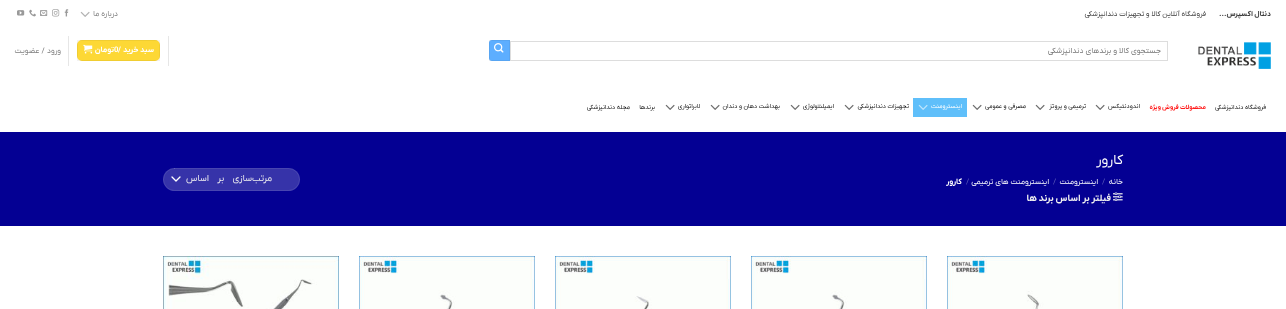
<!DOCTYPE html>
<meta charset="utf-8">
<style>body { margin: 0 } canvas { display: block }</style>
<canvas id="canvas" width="1286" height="309"></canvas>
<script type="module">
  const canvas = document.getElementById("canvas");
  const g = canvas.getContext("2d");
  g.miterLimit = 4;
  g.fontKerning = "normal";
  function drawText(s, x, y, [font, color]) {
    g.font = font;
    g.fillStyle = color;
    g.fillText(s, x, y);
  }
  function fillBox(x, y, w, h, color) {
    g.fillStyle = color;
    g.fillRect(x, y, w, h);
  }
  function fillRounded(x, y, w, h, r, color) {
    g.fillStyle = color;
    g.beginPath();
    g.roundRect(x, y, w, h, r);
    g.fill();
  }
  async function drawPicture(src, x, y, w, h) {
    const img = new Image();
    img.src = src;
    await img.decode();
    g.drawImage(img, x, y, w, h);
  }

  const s1 = ["bold 7.25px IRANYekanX", "#3A3A3A"];
  const s2 = ["7.25px IRANYekanX", "#3A3A3A"];
  const s3 = ["7.75px IRANYekanX", "#7D7D7D"];
  const s4 = ["7.9px IRANYekanX", "#757575"];
  const s5 = ["bold 7.75px IRANYekanX", "#FFFFFF"];
  const s6 = ["6.25px IRANYekanX", "#0A0A0A"];
  const s7 = ["bold 6.25px IRANYekanX", "#FF1919"];
  const s8 = ["6.25px IRANYekanX", "#FFFFFF"];
  const s9 = ["14px IRANYekanX", "#FFFFFF"];
  const s10 = ["7.75px IRANYekanX", "#FFFFFF"];
  const s11 = ["7.75px IRANYekanX", "#5C59B9"];
  const s12 = ["bold 9.5px IRANYekanX", "#F1F1F1"];
  const s13 = ["9.25px IRANYekanX", "#F1F1F1"];

  fillBox(0, 0, 1286, 309, "#FFFFFF");
  g.direction = "rtl";
  drawText("دنتال اکسپرس...", 1271, 16, s1);
  drawText("فروشگاه آنلاین کالا و تجهیزات دندانپزشکی", 1206, 16, s2);
  drawText("درباره ما", 118, 16, s3);
  await drawPicture("pic1.png", 80, 11, 10, 6);
  await drawPicture("pic2.png", 64, 9, 5, 8);
  await drawPicture("pic3.png", 52, 9, 8, 8);
  await drawPicture("pic4.png", 40, 10, 8, 6);
  await drawPicture("pic5.png", 29, 9, 7, 8);
  await drawPicture("pic6.png", 17, 10, 8, 6);
  await drawPicture("pic7.png", 1198, 42, 73, 27);
  g.strokeStyle = "#DDDDDD";
  g.strokeRect(510.5, 41.5, 657, 19);
  drawText("جستجوی کالا و برندهای دندانپزشکی", 1161, 53, s4);
  g.fillStyle = "#5DAEFF";
  g.beginPath();
  g.roundRect(489, 40, 21, 21, [3, 0, 0, 3]);
  g.fill();
  g.strokeStyle = "rgba(0, 0, 0, 0.05)";
  g.strokeRect(489.5, 40.5, 20, 20);
  await drawPicture("pic8.png", 494, 43, 10, 10);
  fillBox(168, 36, 1, 30, "#E6E6E6");
  fillRounded(77, 40, 83, 21, 5, "#FDD835");
  g.strokeRect(77.5, 40.5, 82, 20);
  g.letterSpacing = "0.25px";
  drawText("سبد خرید", 154, 52, s5);
  g.direction = "ltr";
  drawText("/", 118, 52, s5);
  drawText("0", 114, 52, s5);
  g.direction = "rtl";
  drawText("تومان", 114, 52, s5);
  await drawPicture("pic9.png", 83, 44, 10, 10);
  fillBox(68, 36, 1, 30, "#E6E6E6");
  drawText("ورود", 61, 53, s3);
  drawText("/ عضویت", 45, 53, s3);
  g.letterSpacing = "0px";
  drawText("فروشگاه دندانپزشکی", 1266, 109, s6);
  drawText("محصولات فروش ویژه", 1206, 109, s7);
  drawText("اندودنتیکس", 1140, 108, s6);
  await drawPicture("pic10.png", 1095, 104, 10, 6);
  drawText("ترمیمی و پروتز", 1086, 108, s6);
  await drawPicture("pic10.png", 1035, 104, 10, 6);
  drawText("مصرفی و عمومی", 1026, 108, s6);
  await drawPicture("pic10.png", 972, 104, 10, 6);
  fillBox(913, 98, 54, 19, "#5FBFFA");
  drawText("اینسترومنت", 962, 108, s8);
  await drawPicture("pic11.png", 918, 104, 10, 6);
  drawText("تجهیزات دندانپزشکی", 909, 108, s6);
  await drawPicture("pic10.png", 844, 104, 10, 6);
  drawText("ایمپلنتولوژی", 834, 108, s6);
  await drawPicture("pic10.png", 790, 104, 10, 6);
  drawText("بهداشت دهان و دندان", 780, 108, s6);
  await drawPicture("pic10.png", 710, 104, 10, 6);
  drawText("لابراتواری", 700, 108, s6);
  await drawPicture("pic10.png", 665, 104, 10, 6);
  drawText("برندها", 655, 109, s6);
  drawText("مجله دندانپزشکی", 630, 109, s6);
  fillBox(0, 132, 1286, 94, "#040093");
  drawText("کارور", 1123, 164, s9);
  drawText("خانه", 1123, 184, s10);
  g.direction = "ltr";
  drawText("/", 1102, 184, s11);
  g.direction = "rtl";
  drawText("اینسترومنت", 1098, 184, s10);
  g.direction = "ltr";
  drawText("/", 1053, 184, s11);
  g.direction = "rtl";
  drawText("اینسترومنت های ترمیمی", 1049, 184, s10);
  g.direction = "ltr";
  drawText("/", 966, 184, s11);
  g.direction = "rtl";
  drawText("کارور", 962, 184, s5);
  await drawPicture("pic12.png", 1113, 192, 10, 9);
  drawText("فیلتر بر اساس برند ها", 1111, 201, s12);
  fillRounded(163, 168, 137, 23, 11.5, "#3633A9");
  g.beginPath();
  g.moveTo(172, 177);
  g.lineTo(176, 181);
  g.lineTo(180, 177);
  g.strokeStyle = "#FFFFFF";
  g.lineWidth = 1.3;
  g.lineCap = "round";
  g.lineJoin = "round";
  g.stroke();
  g.beginPath();
  g.roundRect(163.5, 168.5, 136, 22, 11);
  g.strokeStyle = "rgba(255, 255, 255, 0.09)";
  g.lineWidth = 1;
  g.lineJoin = "miter";
  g.stroke();
  g.wordSpacing = "6px";
  drawText("مرتب‌سازی بر اساس", 272, 181, s13);
  await drawPicture("pic13.png", 947, 256, 176, 53);
  await drawPicture("pic14.png", 751, 256, 176, 53);
  await drawPicture("pic15.png", 555, 256, 176, 53);
  await drawPicture("pic14.png", 359, 256, 176, 53);
  await drawPicture("pic16.png", 163, 256, 176, 53);
</script>
